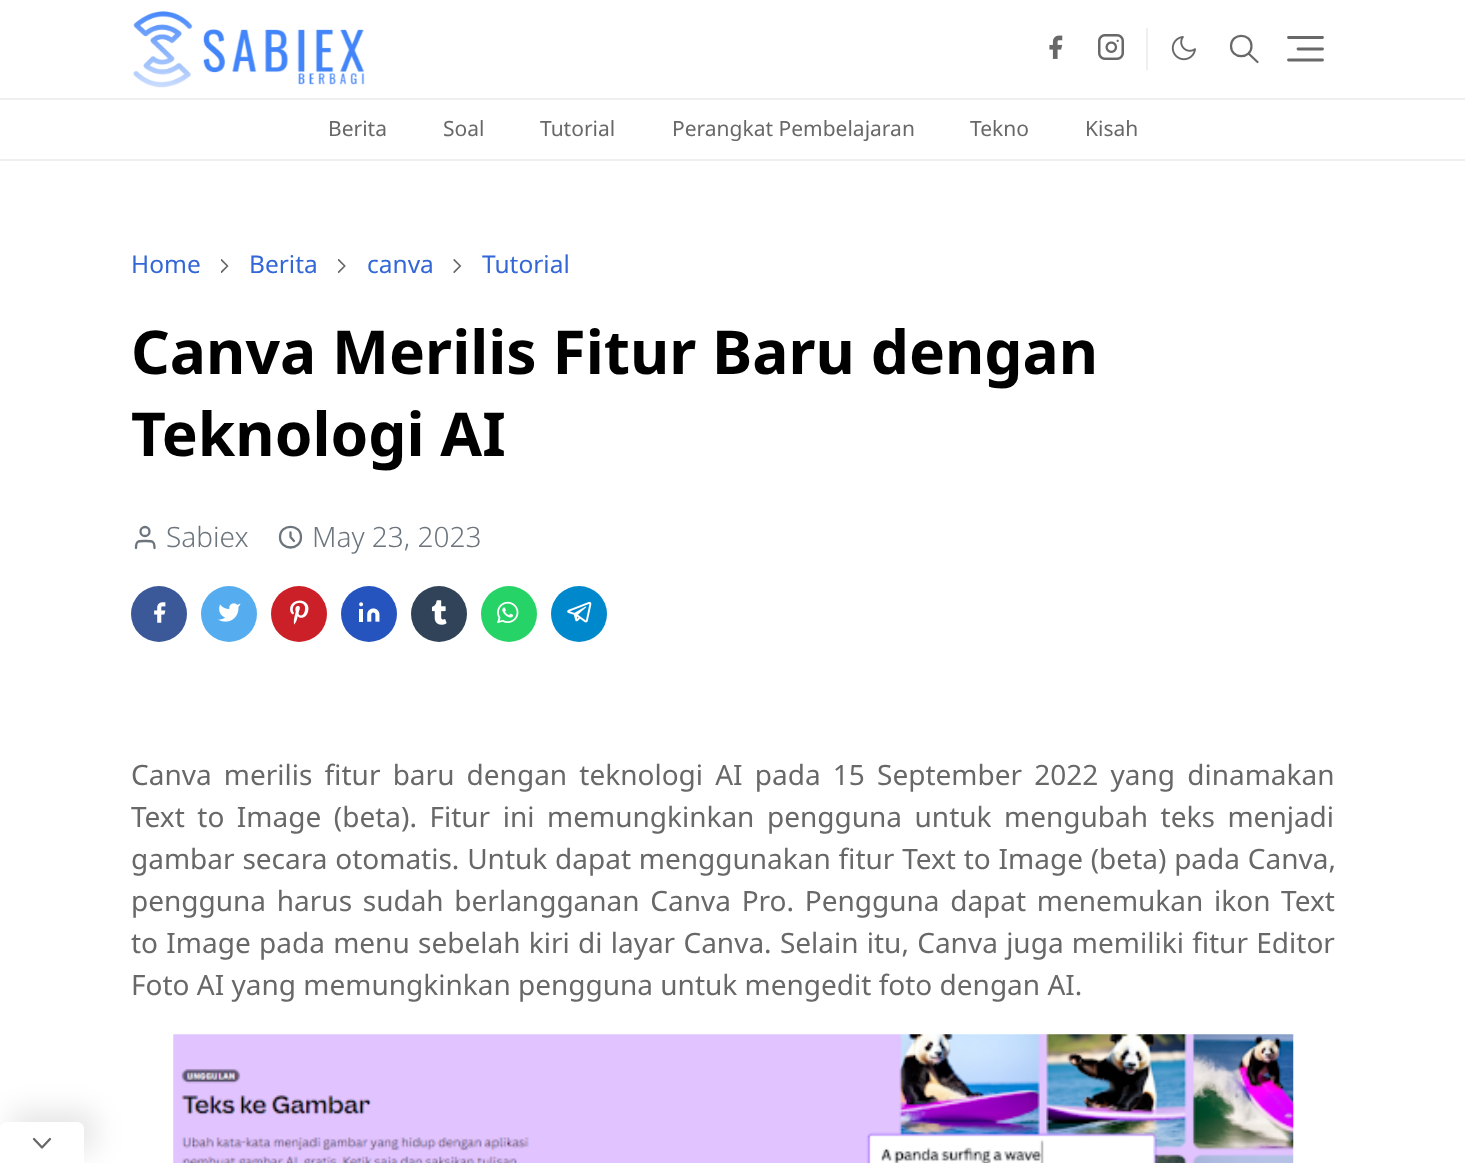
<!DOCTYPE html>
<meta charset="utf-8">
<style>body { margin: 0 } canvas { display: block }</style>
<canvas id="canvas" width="1465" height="1163"></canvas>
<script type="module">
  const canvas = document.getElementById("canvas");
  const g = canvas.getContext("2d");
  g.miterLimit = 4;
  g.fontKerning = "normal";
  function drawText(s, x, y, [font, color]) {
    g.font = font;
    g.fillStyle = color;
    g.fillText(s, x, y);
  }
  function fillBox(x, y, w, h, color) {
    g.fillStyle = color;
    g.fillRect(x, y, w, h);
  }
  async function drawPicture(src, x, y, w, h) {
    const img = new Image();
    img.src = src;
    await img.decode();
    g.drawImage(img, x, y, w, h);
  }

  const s1 = ["21px Noto Sans", "#686868"];
  const s2 = ["24.5px Noto Sans", "#3367D6"];
  const s3 = ["bold 60.5px Noto Sans", "#000000"];
  const s4 = ["300 28px Noto Sans", "#6C757D"];
  const s5 = ["28px Noto Sans", "#686868"];

  fillBox(0, 0, 1465, 1163, "#FFFFFF");
  fillBox(0, 98, 1465, 2, "#EFEFEF");
  await drawPicture("pic1.png", 133, 11, 232, 77);
  fillBox(1146, 28, 2, 42, "#EFEFEF");
  await drawPicture("pic2.png", 1049, 35, 14, 24);
  await drawPicture("pic3.png", 1098, 34, 26, 26);
  await drawPicture("pic4.png", 1171, 36, 25, 25);
  g.beginPath();
  g.moveTo(1257.5, 62);
  g.lineTo(1248.5, 53.5);
  g.moveTo(1251.5, 46);
  g.bezierCurveTo(1251.5, 59.5, 1231, 59.5, 1231, 46);
  g.bezierCurveTo(1231, 32.5, 1251.5, 32.5, 1251.5, 46);
  g.closePath();
  g.strokeStyle = "#686868";
  g.lineWidth = 2.2;
  g.lineCap = "round";
  g.lineJoin = "round";
  g.stroke();
  g.beginPath();
  g.moveTo(1288.5, 37.5);
  g.lineTo(1322.5, 37.5);
  g.moveTo(1298, 49);
  g.lineTo(1322.5, 49);
  g.moveTo(1288.5, 60);
  g.lineTo(1322.5, 60);
  g.lineWidth = 2.8;
  g.stroke();
  fillBox(0, 159, 1465, 2, "#EFEFEF");
  drawText("Berita", 328, 136, s1);
  drawText("Soal", 443, 136, s1);
  drawText("Tutorial", 540, 136, s1);
  drawText("Perangkat Pembelajaran", 672, 136, s1);
  drawText("Tekno", 970, 136, s1);
  drawText("Kisah", 1085, 136, s1);
  drawText("Home", 131, 273, s2);
  await drawPicture("pic5.png", 221, 259, 8, 14);
  drawText("Berita", 249, 273, s2);
  await drawPicture("pic6.png", 338, 259, 8, 14);
  drawText("canva", 367, 273, s2);
  await drawPicture("pic7.png", 453, 259, 9, 14);
  drawText("Tutorial", 482, 273, s2);
  drawText("Canva Merilis Fitur Baru dengan", 131, 374, s3);
  drawText("Teknologi AI", 131, 456, s3);
  g.beginPath();
  g.moveTo(154.5, 548);
  g.bezierCurveTo(154.5, 540.5, 152, 541, 145, 541);
  g.bezierCurveTo(138.5, 541, 136, 540.5, 136, 548);
  g.strokeStyle = "#6C757D";
  g.lineWidth = 2.3;
  g.stroke();
  g.beginPath();
  g.arc(145, 531.5, 4.5, 0, Math.PI * 2);
  g.stroke();
  drawText("Sabiex", 166, 547, s4);
  g.beginPath();
  g.moveTo(290.5, 532.5);
  g.lineTo(290.5, 537);
  g.lineTo(294, 541);
  g.moveTo(301, 537);
  g.bezierCurveTo(301, 551, 280, 551, 280, 537);
  g.bezierCurveTo(280, 523.5, 301, 523.5, 301, 537);
  g.closePath();
  g.stroke();
  drawText("May 23, 2023", 312, 547, s4);
  g.fillStyle = "#3B5998";
  g.beginPath();
  g.arc(159, 614, 28, 0, Math.PI * 2);
  g.fill();
  await drawPicture("pic8.png", 154, 602, 12, 21);
  g.fillStyle = "#55ACEE";
  g.beginPath();
  g.arc(229, 614, 28, 0, Math.PI * 2);
  g.fill();
  await drawPicture("pic9.png", 218, 603, 23, 19);
  g.fillStyle = "#CB2027";
  g.beginPath();
  g.arc(299, 614, 28, 0, Math.PI * 2);
  g.fill();
  await drawPicture("pic10.png", 290, 600, 19, 25);
  g.fillStyle = "#2554BF";
  g.beginPath();
  g.arc(369, 614, 28, 0, Math.PI * 2);
  g.fill();
  await drawPicture("pic11.png", 359, 602, 21, 20);
  g.fillStyle = "#314358";
  g.beginPath();
  g.arc(439, 614, 28, 0, Math.PI * 2);
  g.fill();
  await drawPicture("pic12.png", 431, 600, 16, 25);
  g.fillStyle = "#25D366";
  g.beginPath();
  g.arc(509, 614, 28, 0, Math.PI * 2);
  g.fill();
  await drawPicture("pic13.png", 497, 601, 22, 23);
  g.fillStyle = "#0088CC";
  g.beginPath();
  g.arc(579, 614, 28, 0, Math.PI * 2);
  g.fill();
  await drawPicture("pic14.png", 567, 601, 25, 22);
  g.wordSpacing = "4.9px";
  drawText("Canva merilis fitur baru dengan teknologi AI pada 15 September 2022 yang dinamakan", 131, 785, s5);
  g.wordSpacing = "5.25px";
  drawText("Text to Image (beta). Fitur ini memungkinkan pengguna untuk mengubah teks menjadi", 131, 827, s5);
  g.wordSpacing = "0.5px";
  drawText("gambar secara otomatis. Untuk dapat menggunakan fitur Text to Image (beta) pada Canva,", 131, 869, s5);
  g.wordSpacing = "3.4px";
  drawText("pengguna harus sudah berlangganan Canva Pro. Pengguna dapat menemukan ikon Text", 131, 911, s5);
  g.wordSpacing = "1px";
  drawText("to Image pada menu sebelah kiri di layar Canva. Selain itu, Canva juga memiliki fitur Editor", 131, 953, s5);
  g.wordSpacing = "0px";
  drawText("Foto AI yang memungkinkan pengguna untuk mengedit foto dengan AI.", 131, 995, s5);
  await drawPicture("pic15.png", 173, 1034, 1121, 129);
  g.fillStyle = "rgba(0, 0, 0, 0.1)";
  g.filter = "blur(14px)";
  g.beginPath();
  g.roundRect(11, 1111, 84, 42, 7);
  g.fill();
  g.filter = "none";
  g.fillStyle = "#FFFFFF";
  g.beginPath();
  g.moveTo(7, 1122);
  g.lineTo(77, 1122);
  g.bezierCurveTo(81, 1122, 84, 1125, 84, 1129);
  g.lineTo(84, 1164);
  g.lineTo(0, 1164);
  g.lineTo(0, 1129);
  g.bezierCurveTo(0, 1125, 3, 1122, 7, 1122);
  g.closePath();
  g.fill();
  g.beginPath();
  g.moveTo(50, 1139);
  g.lineTo(42, 1147.5);
  g.lineTo(34, 1139);
  g.strokeStyle = "#686868";
  g.stroke();
</script>
